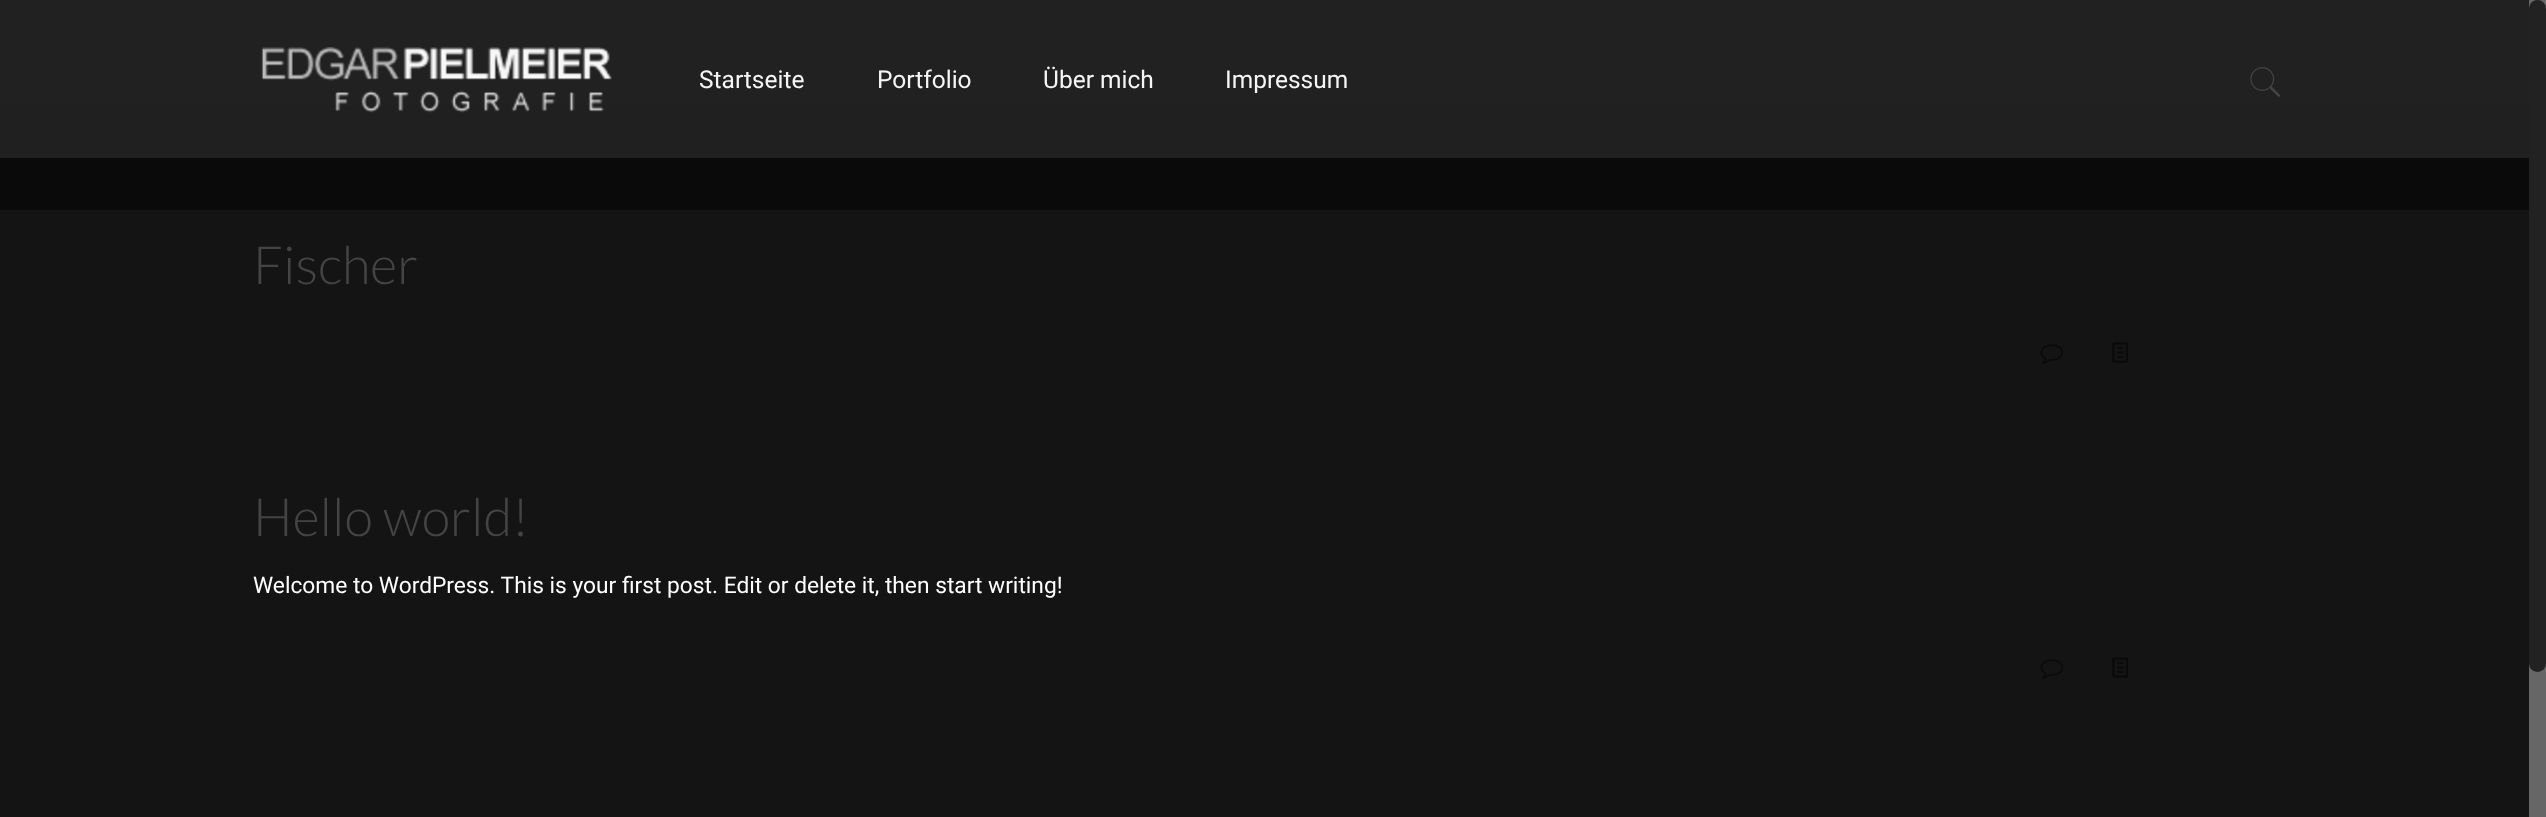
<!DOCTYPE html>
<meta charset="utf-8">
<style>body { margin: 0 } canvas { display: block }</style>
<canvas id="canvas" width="2546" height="817"></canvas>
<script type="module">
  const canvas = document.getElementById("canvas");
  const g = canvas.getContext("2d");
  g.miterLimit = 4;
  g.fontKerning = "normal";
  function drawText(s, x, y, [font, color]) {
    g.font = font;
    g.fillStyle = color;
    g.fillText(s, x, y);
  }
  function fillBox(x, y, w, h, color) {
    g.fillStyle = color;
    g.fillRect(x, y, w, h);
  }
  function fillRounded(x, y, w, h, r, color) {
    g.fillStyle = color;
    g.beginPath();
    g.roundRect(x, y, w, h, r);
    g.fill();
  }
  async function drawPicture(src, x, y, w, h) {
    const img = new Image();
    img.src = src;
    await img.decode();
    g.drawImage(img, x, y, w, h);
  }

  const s1 = ["24.5px Roboto", "#F5F5F5"];
  const s2 = ["300 52.5px Lato", "#444444"];
  const s3 = ["22.75px Roboto", "#FFFFFF"];

  fillBox(0, 0, 2546, 817, "#141414");
  fillBox(0, 0, 2529, 105, "#212121");
  fillBox(0, 105, 2529, 53, "#202020");
  await drawPicture("pic1.png", 261, 47, 351, 66);
  drawText("Startseite", 699, 88, s1);
  drawText("Portfolio", 877, 88, s1);
  drawText("Über mich", 1043, 88, s1);
  drawText("Impressum", 1225, 88, s1);
  await drawPicture("pic2.png", 2250, 67, 31, 30);
  fillBox(0, 158, 2529, 52, "#0A0A0A");
  drawText("Fischer", 253, 284, s2);
  await drawPicture("pic3.png", 2040, 344, 23, 20);
  await drawPicture("pic4.png", 2112, 342, 16, 21);
  drawText("Hello world!", 253, 536, s2);
  drawText("Welcome to WordPress. This is your first post. Edit or delete it, then start writing!", 253, 593, s3);
  await drawPicture("pic3.png", 2040, 659, 23, 20);
  await drawPicture("pic4.png", 2112, 657, 16, 21);
  fillBox(2529, 0, 17, 817, "#666666");
  fillRounded(2529, 0, 17, 672, 8.5, "#222222");
</script>
